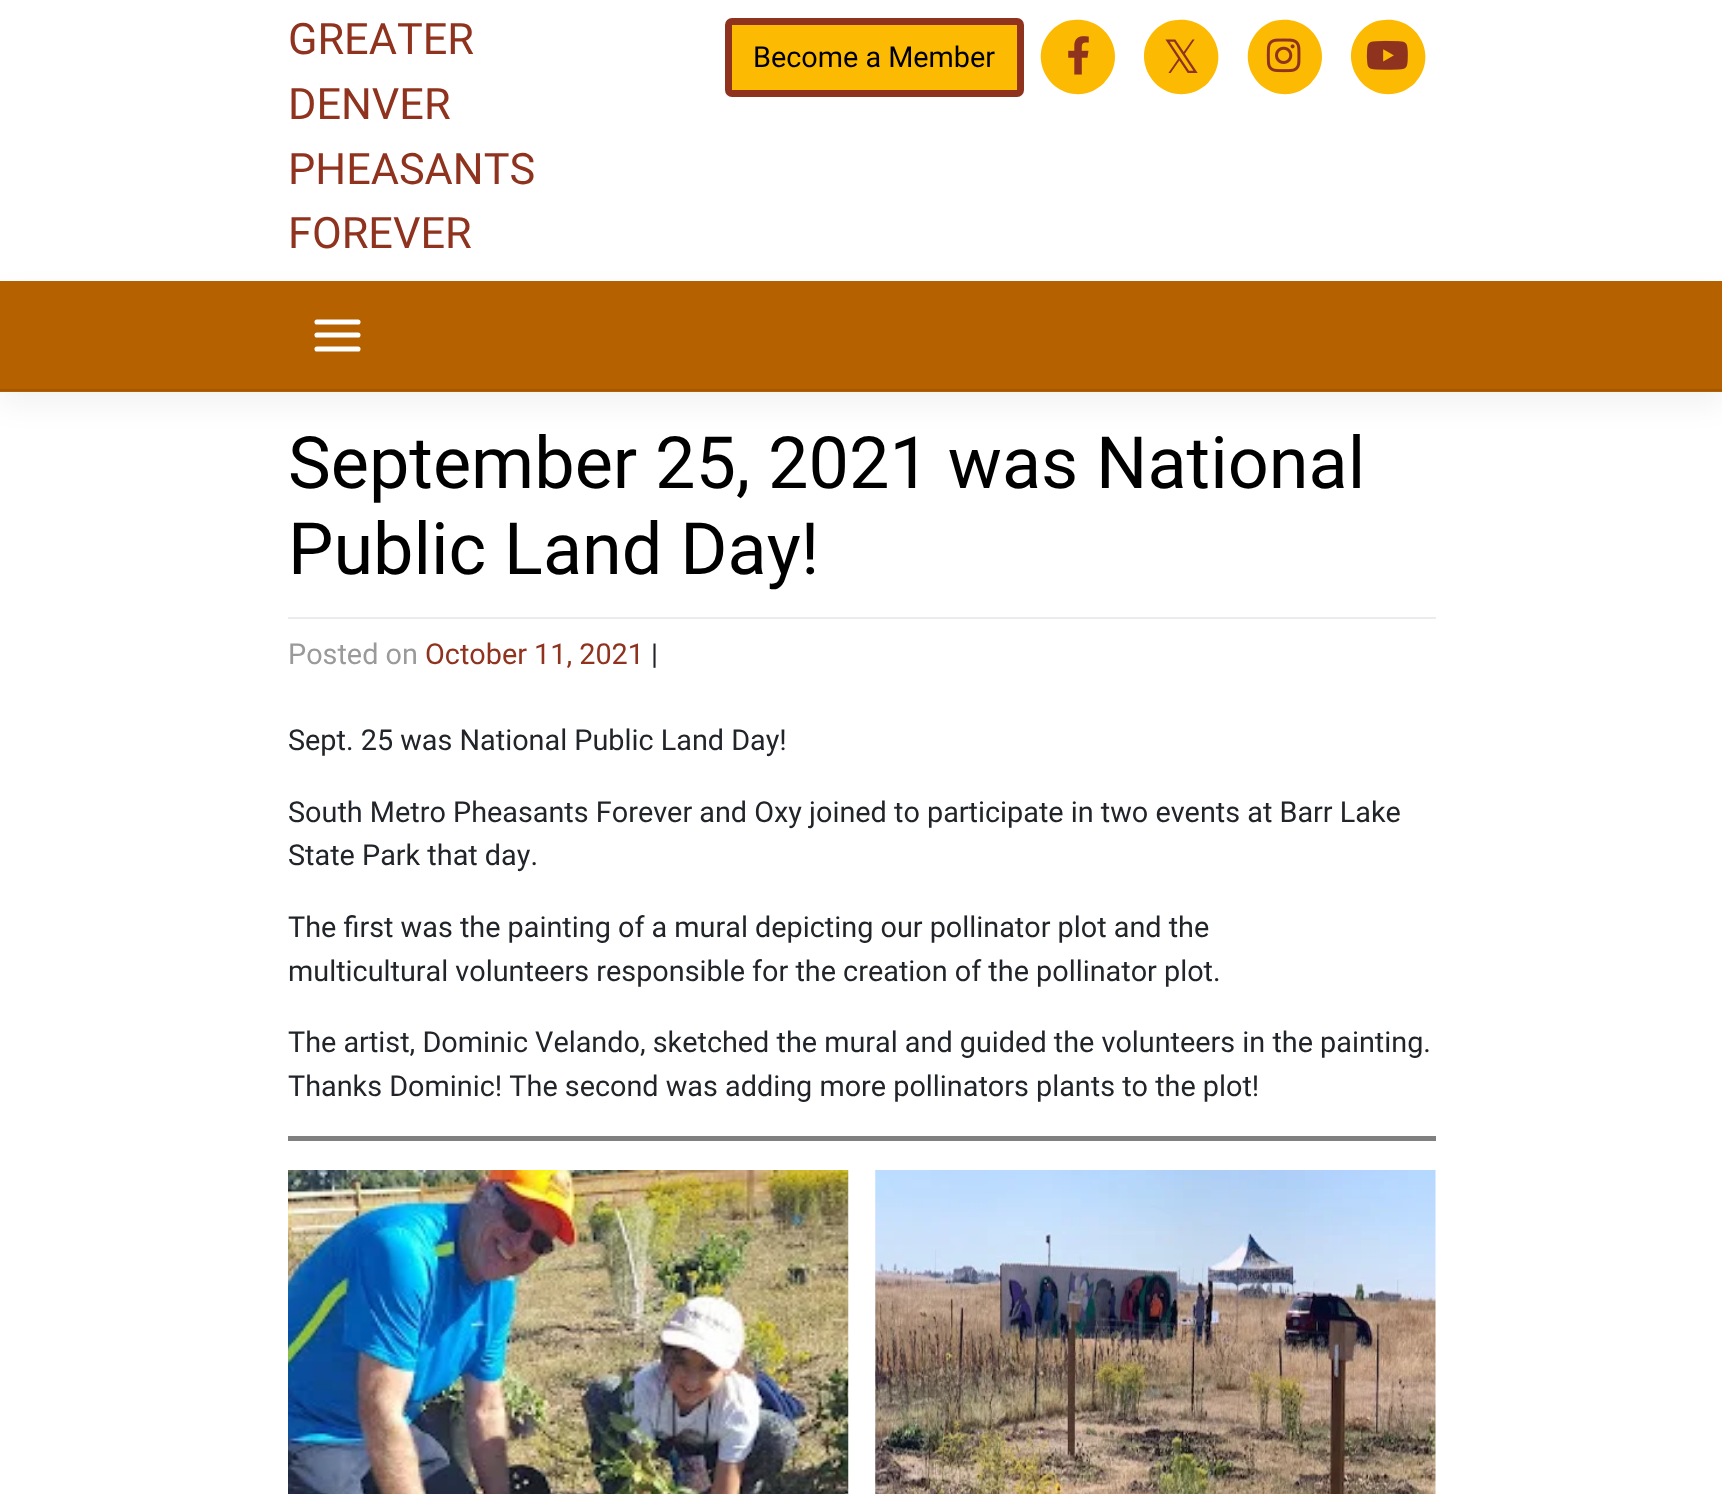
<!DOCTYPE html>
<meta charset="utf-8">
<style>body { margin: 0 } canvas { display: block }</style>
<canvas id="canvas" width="1722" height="1494"></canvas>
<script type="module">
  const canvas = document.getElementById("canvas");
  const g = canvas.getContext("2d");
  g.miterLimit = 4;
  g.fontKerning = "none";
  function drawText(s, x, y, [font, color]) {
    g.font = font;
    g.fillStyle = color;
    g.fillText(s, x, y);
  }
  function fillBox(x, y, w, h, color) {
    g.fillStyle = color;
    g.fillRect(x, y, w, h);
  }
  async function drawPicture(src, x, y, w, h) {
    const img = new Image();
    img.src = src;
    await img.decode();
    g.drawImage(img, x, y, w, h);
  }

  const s1 = ["43.25px Roboto", "#8F331F"];
  const s2 = ["28.8px Roboto", "#000000"];
  const s3 = ["46px DejaVu Sans", "#8F331F"];
  const s4 = ["72px Roboto", "#000000"];
  const s5 = ["28.8px Roboto", "#9A9A9A"];
  const s6 = ["28.8px Roboto", "#8F331F"];
  const s7 = ["28.8px Roboto", "#212529"];

  fillBox(0, 0, 1722, 1494, "#FFFFFF");
  drawText("GREATER", 288, 54, s1);
  drawText("DENVER", 288, 119, s1);
  drawText("PHEASANTS", 288, 184, s1);
  drawText("FOREVER", 288, 248, s1);
  g.fillStyle = "#FCBA03";
  g.beginPath();
  g.roundRect(728.5, 21.5, 292, 72, 3.5);
  g.fill();
  g.strokeStyle = "#8F331F";
  g.lineWidth = 7;
  g.stroke();
  drawText("Become a Member", 753, 67, s2);
  g.fillStyle = "#FCBA03";
  g.beginPath();
  g.moveTo(1052, 30);
  g.bezierCurveTo(1058, 24, 1066, 20, 1074, 20);
  g.bezierCurveTo(1109, 17, 1129, 58, 1104, 83);
  g.bezierCurveTo(1098, 89, 1090, 93, 1082, 94);
  g.bezierCurveTo(1047, 97, 1027, 55, 1052, 30);
  g.closePath();
  g.fill();
  await drawPicture("pic1.png", 1068, 36, 21, 39);
  g.beginPath();
  g.moveTo(1155, 30);
  g.bezierCurveTo(1161, 24, 1169, 20, 1178, 20);
  g.bezierCurveTo(1212, 17, 1232, 58, 1208, 83);
  g.bezierCurveTo(1202, 89, 1194, 93, 1185, 94);
  g.bezierCurveTo(1151, 97, 1130, 55, 1155, 30);
  g.closePath();
  g.fill();
  drawText("𝕏", 1163, 73, s3);
  g.fillStyle = "#FCBA03";
  g.beginPath();
  g.moveTo(1259, 30);
  g.bezierCurveTo(1265, 24, 1273, 20, 1281, 20);
  g.bezierCurveTo(1316, 17, 1336, 58, 1311, 83);
  g.bezierCurveTo(1305, 89, 1297, 93, 1289, 94);
  g.bezierCurveTo(1254, 97, 1234, 55, 1259, 30);
  g.closePath();
  g.fill();
  await drawPicture("pic2.png", 1266, 38, 35, 35);
  g.beginPath();
  g.moveTo(1362, 30);
  g.bezierCurveTo(1368, 24, 1376, 20, 1385, 20);
  g.bezierCurveTo(1419, 17, 1439, 58, 1415, 83);
  g.bezierCurveTo(1409, 89, 1401, 93, 1392, 94);
  g.bezierCurveTo(1358, 97, 1337, 55, 1362, 30);
  g.closePath();
  g.fill();
  await drawPicture("pic3.png", 1366, 40, 42, 30);
  g.fillStyle = "rgba(0, 0, 0, 0.05)";
  g.filter = "blur(14.5px)";
  g.beginPath();
  g.rect(0, 295, 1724, 110);
  g.fill();
  g.filter = "none";
  fillBox(0, 281, 1722, 111, "#B56100");
  fillBox(0, 389, 1722, 2, "#A35700");
  g.beginPath();
  g.moveTo(317, 322);
  g.lineTo(358, 322);
  g.moveTo(317, 335);
  g.lineTo(358, 335);
  g.moveTo(317, 349);
  g.lineTo(358, 349);
  g.strokeStyle = "#FFFFFF";
  g.lineWidth = 5.1;
  g.lineCap = "round";
  g.stroke();
  fillBox(288, 617, 1148, 2, "#EAECEF");
  drawText("September 25, 2021 was National", 288, 488, s4);
  drawText("Public Land Day!", 288, 574, s4);
  drawText("Posted on", 288, 664, s5);
  drawText("October 11, 2021", 425, 664, s6);
  drawText("|", 651, 664, s7);
  drawText("Sept. 25 was National Public Land Day!", 288, 750, s7);
  drawText("South Metro Pheasants Forever and Oxy joined to participate in two events at Barr Lake", 288, 822, s7);
  drawText("State Park that day.", 288, 865, s7);
  drawText("The first was the painting of a mural depicting our pollinator plot and the", 288, 937, s7);
  drawText("multicultural volunteers responsible for the creation of the pollinator plot.", 288, 981, s7);
  drawText("The artist, Dominic Velando, sketched the mural and guided the volunteers in the painting.", 288, 1052, s7);
  drawText("Thanks Dominic! The second was adding more pollinators plants to the plot!", 288, 1096, s7);
  fillBox(288, 1136, 1148, 5, "#808080");
  await drawPicture("pic4.png", 288, 1170, 561, 324);
  await drawPicture("pic5.png", 875, 1170, 561, 324);
</script>
